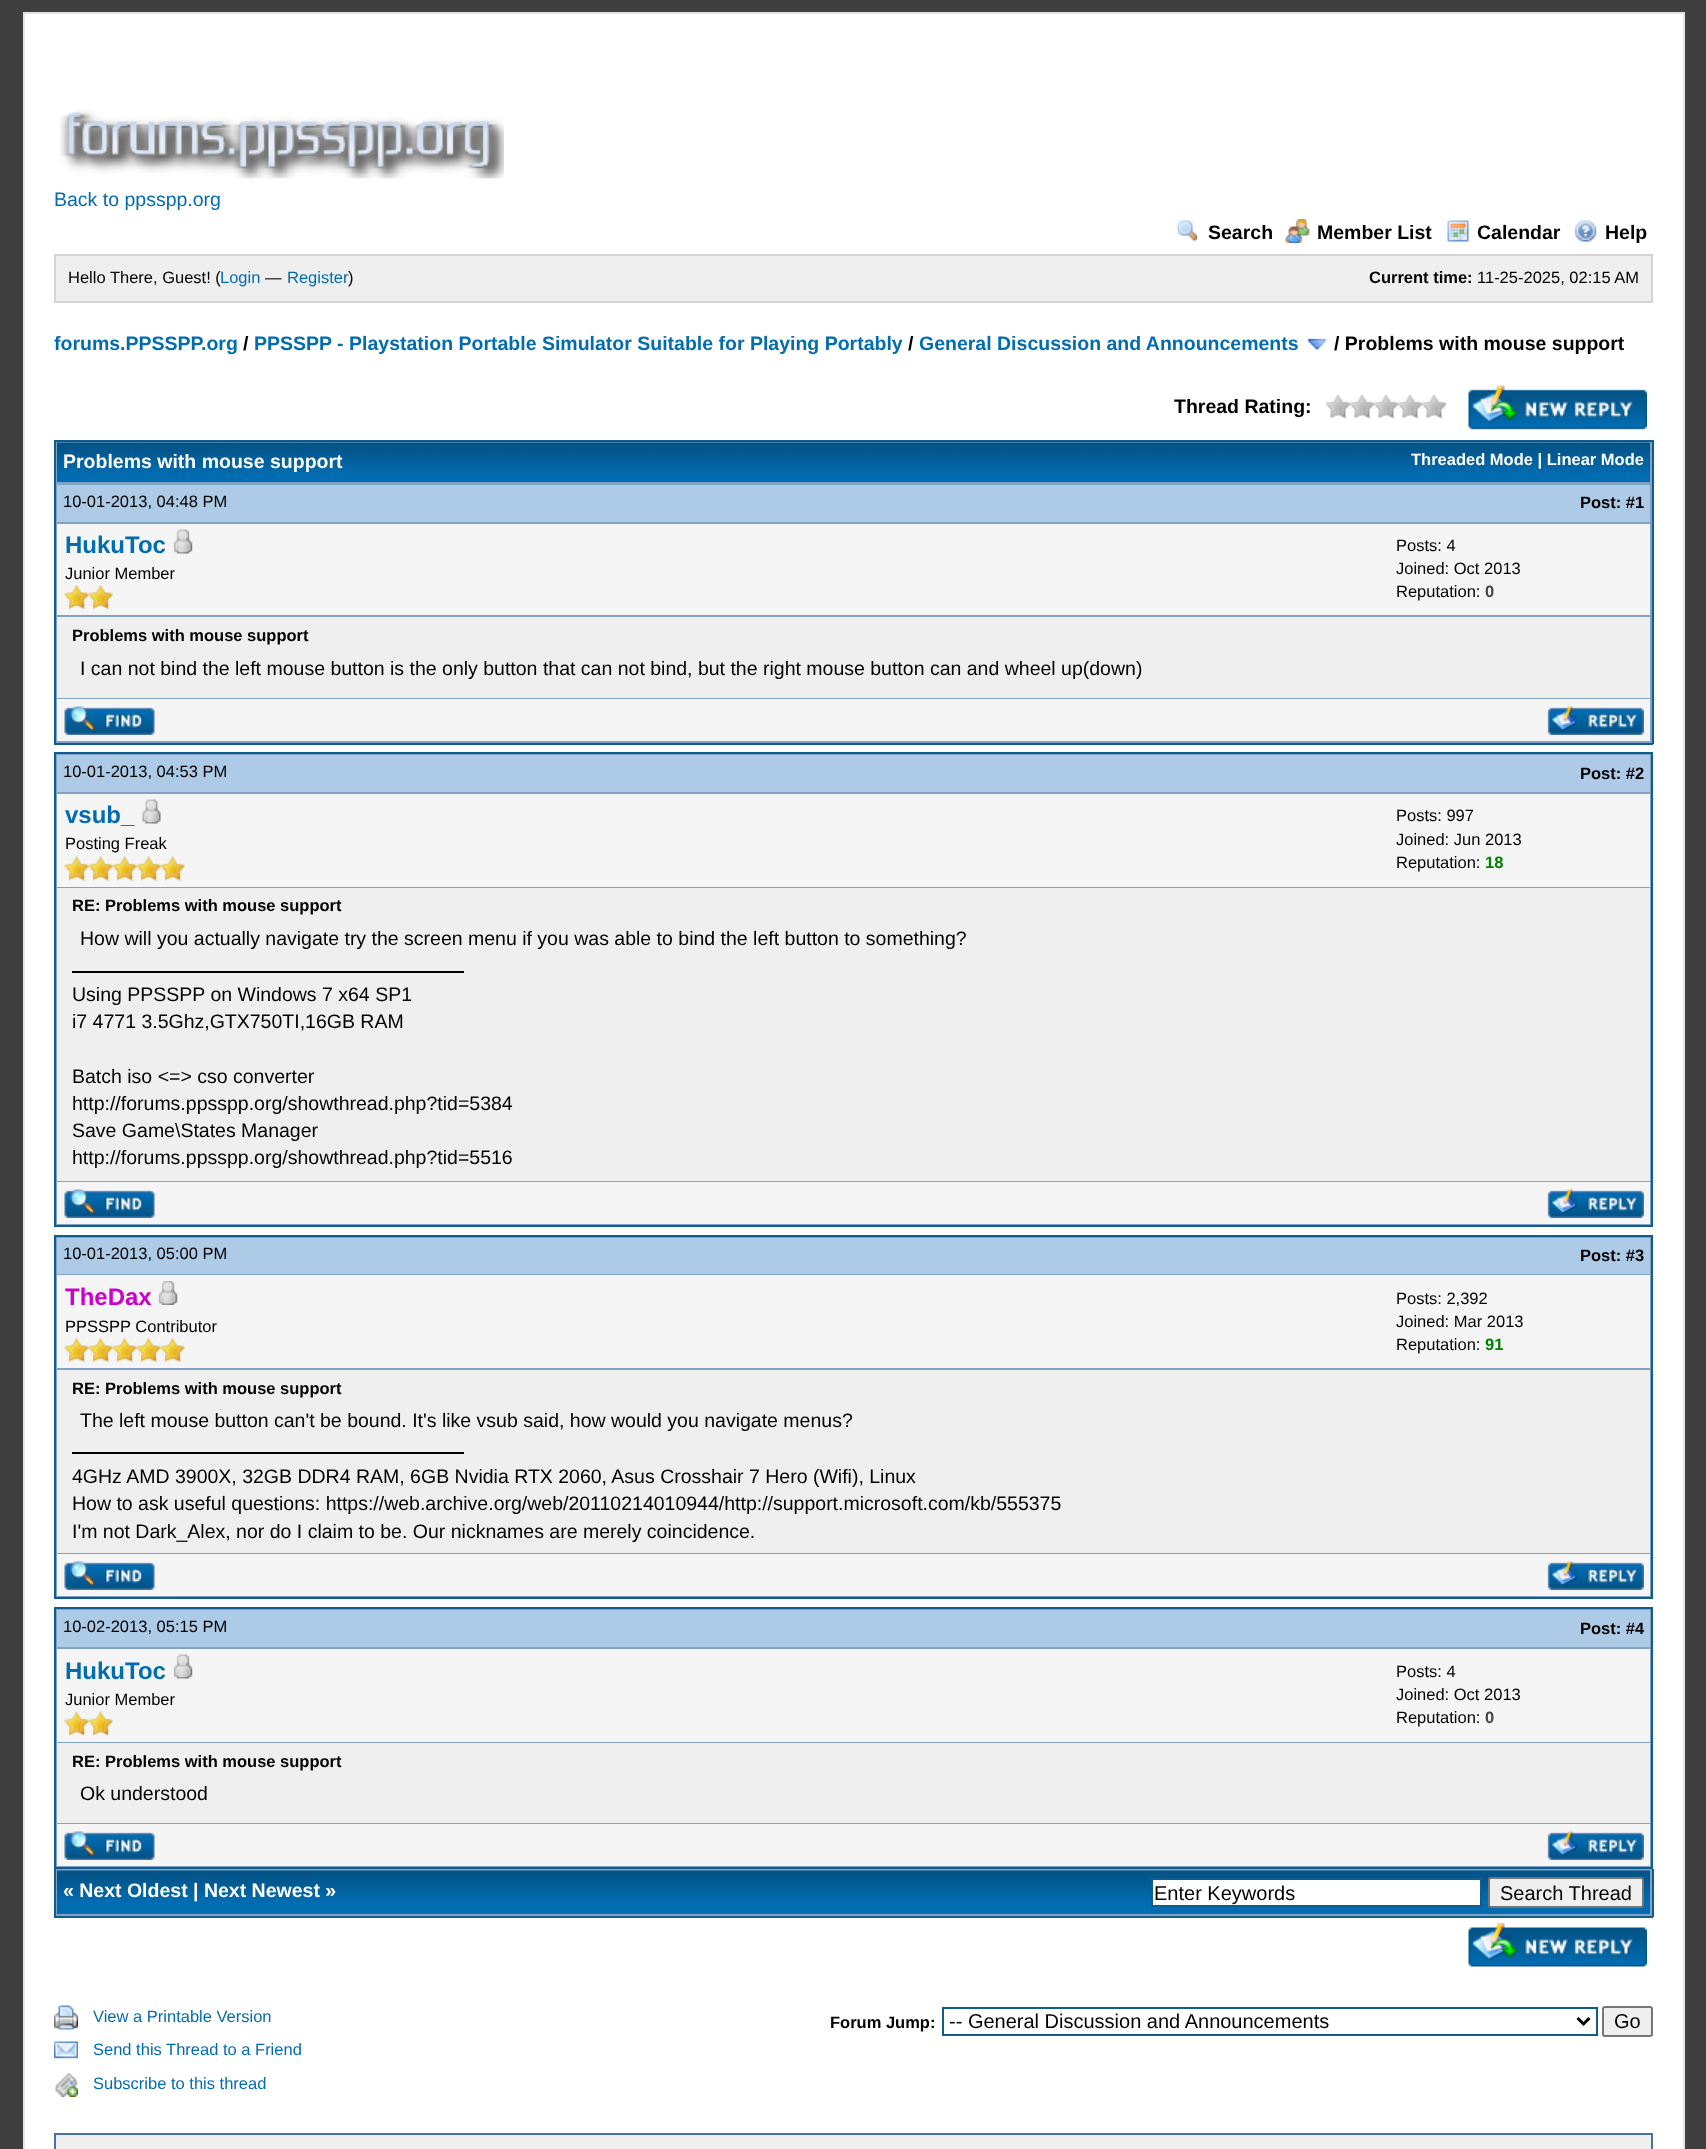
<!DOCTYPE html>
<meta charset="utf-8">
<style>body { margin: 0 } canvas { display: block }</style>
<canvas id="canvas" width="1706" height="2149"></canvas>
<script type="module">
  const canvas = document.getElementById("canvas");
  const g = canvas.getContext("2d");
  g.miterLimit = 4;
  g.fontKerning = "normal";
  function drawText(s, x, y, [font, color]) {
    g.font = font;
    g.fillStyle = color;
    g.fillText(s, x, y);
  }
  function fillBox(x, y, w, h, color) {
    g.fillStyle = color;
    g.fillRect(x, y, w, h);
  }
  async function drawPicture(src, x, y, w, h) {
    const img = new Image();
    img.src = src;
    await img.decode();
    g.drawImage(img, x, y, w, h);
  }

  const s1 = ["19.5px Liberation Sans", "#026CB1"];
  const s2 = ["bold 19.5px Liberation Sans", "#000000"];
  const s3 = ["16.5px Liberation Sans", "#000000"];
  const s4 = ["16.5px Liberation Sans", "#026CB1"];
  const s5 = ["bold 16.5px Liberation Sans", "#000000"];
  const s6 = ["bold 19.5px Liberation Sans", "#026CB1"];
  const s7 = ["bold 19.5px Liberation Sans", "#FFFFFF"];
  const s8 = ["bold 16.5px Liberation Sans", "#FFFFFF"];
  const s9 = ["bold 24px Liberation Sans", "#026CB1"];
  const s10 = ["bold 16.5px Liberation Sans", "#444444"];
  const s11 = ["19.5px Liberation Sans", "#000000"];
  const s12 = ["bold 16.5px Liberation Sans", "#008000"];
  const s13 = ["bold 24px Liberation Sans", "#CC00CC"];
  const s14 = ["20px Liberation Sans", "#000000"];

  fillBox(0, 0, 1706, 2149, "#3F3F3F");
  g.fillStyle = "#FFFFFF";
  g.beginPath();
  g.rect(24, 13, 1660, 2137);
  g.fill();
  g.strokeStyle = "#E4E4E4";
  g.lineWidth = 2;
  g.stroke();
  await drawPicture("pic1.png", 60, 110, 444, 69);
  drawText("Back to ppsspp.org", 54, 206, s1);
  await drawPicture("pic2.png", 1177, 220, 21, 22);
  drawText("Search", 1208, 239, s2);
  await drawPicture("pic3.png", 1285, 219, 25, 24);
  drawText("Member List", 1317, 239, s2);
  await drawPicture("pic4.png", 1447, 220, 22, 22);
  drawText("Calendar", 1477, 239, s2);
  await drawPicture("pic5.png", 1574, 220, 23, 22);
  drawText("Help", 1605, 239, s2);
  g.fillStyle = "#EFEFEF";
  g.beginPath();
  g.rect(55, 255, 1597, 47);
  g.fill();
  g.strokeStyle = "#D4D4D4";
  g.stroke();
  drawText("Hello There, Guest! (", 68, 283, s3);
  drawText("Login", 220, 283, s4);
  drawText("—", 265, 283, s3);
  drawText("Register", 287, 283, s4);
  drawText(")", 348, 283, s3);
  drawText("Current time:", 1369, 283, s5);
  drawText("11-25-2025, 02:15 AM", 1477, 283, s3);
  drawText("forums.PPSSPP.org", 54, 350, s6);
  drawText("/", 243, 350, s2);
  drawText("PPSSPP - Playstation Portable Simulator Suitable for Playing Portably", 254, 350, s6);
  drawText("/", 908, 350, s2);
  drawText("General Discussion and Announcements", 919, 350, s6);
  await drawPicture("pic6.png", 1307, 338, 20, 12);
  drawText("/ Problems with mouse support", 1334, 350, s2);
  drawText("Thread Rating:", 1174, 413, s2);
  await drawPicture("pic7.png", 1326, 394, 120, 25);
  await drawPicture("pic8.png", 1468, 385, 179, 45);
  fillBox(56, 442, 1596, 301, "#81A2C4");
  fillBox(54, 440, 1599, 2, "#0F5C8E");
  fillBox(1652, 440, 2, 304, "#0F5C8E");
  fillBox(54, 440, 2, 43, "#0F5C8E");
  fillBox(57, 473, 1593, 9, "#026CB1");
  await drawPicture("pic9.png", 57, 442, 1593, 31);
  drawText("Problems with mouse support", 63, 468, s7);
  drawText("Threaded Mode | Linear Mode", 1411, 465, s8);
  fillBox(54, 743, 1599, 2, "#0F5C8E");
  fillBox(54, 483, 2, 261, "#0F5C8E");
  fillBox(57, 485, 1593, 37, "#ADCBE7");
  drawText("10-01-2013, 04:48 PM", 63, 507, s3);
  drawText("Post: #1", 1580, 508, s5);
  fillBox(57, 524, 1593, 91, "#F5F5F5");
  drawText("HukuToc", 65, 553, s9);
  await drawPicture("pic10.png", 173, 529, 20, 25);
  drawText("Junior Member", 65, 579, s3);
  await drawPicture("pic11.png", 64, 585, 25, 24);
  await drawPicture("pic12.png", 88, 585, 25, 24);
  drawText("Posts: 4", 1396, 551, s3);
  drawText("Joined: Oct 2013", 1396, 574, s3);
  drawText("Reputation:", 1396, 597, s3);
  drawText("0", 1485, 597, s10);
  fillBox(57, 617, 1593, 81, "#EFEFEF");
  drawText("Problems with mouse support", 72, 641, s5);
  drawText("I can not bind the left mouse button is the only button that can not bind, but the right mouse button can and wheel up(down)", 80, 675, s11);
  fillBox(57, 699, 1593, 42, "#F5F5F5");
  await drawPicture("pic13.png", 64, 706, 91, 29);
  await drawPicture("pic14.png", 1547, 706, 97, 29);
  g.fillStyle = "#81A2C4";
  g.beginPath();
  g.rect(55, 753, 1597, 473);
  g.fill();
  g.strokeStyle = "#0F5C8E";
  g.stroke();
  fillBox(57, 755, 1593, 37, "#ADCBE7");
  drawText("10-01-2013, 04:53 PM", 63, 777, s3);
  drawText("Post: #2", 1580, 779, s5);
  fillBox(57, 794, 1593, 93, "#F5F5F5");
  drawText("vsub_", 65, 823, s9);
  await drawPicture("pic15.png", 142, 799, 19, 25);
  drawText("Posting Freak", 65, 849, s3);
  await drawPicture("pic16.png", 64, 856, 25, 25);
  await drawPicture("pic17.png", 88, 856, 25, 25);
  await drawPicture("pic17.png", 112, 856, 25, 25);
  await drawPicture("pic17.png", 136, 856, 25, 25);
  await drawPicture("pic17.png", 160, 856, 25, 25);
  drawText("Posts: 997", 1396, 821, s3);
  drawText("Joined: Jun 2013", 1396, 845, s3);
  drawText("Reputation:", 1396, 868, s3);
  drawText("18", 1485, 868, s12);
  fillBox(57, 888, 1593, 293, "#EFEFEF");
  drawText("RE: Problems with mouse support", 72, 911, s5);
  drawText("How will you actually navigate try the screen menu if you was able to bind the left button to something?", 80, 945, s11);
  fillBox(72, 971, 392, 2, "#000000");
  drawText("Using PPSSPP on Windows 7 x64 SP1", 72, 1001, s11);
  drawText("i7 4771 3.5Ghz,GTX750TI,16GB RAM", 72, 1028, s11);
  drawText("Batch iso <=> cso converter", 72, 1083, s11);
  drawText("http://forums.ppsspp.org/showthread.php?tid=5384", 72, 1110, s11);
  drawText("Save Game\\States Manager", 72, 1137, s11);
  drawText("http://forums.ppsspp.org/showthread.php?tid=5516", 72, 1164, s11);
  fillBox(57, 1182, 1593, 42, "#F5F5F5");
  await drawPicture("pic13.png", 64, 1189, 91, 29);
  await drawPicture("pic14.png", 1547, 1189, 97, 29);
  g.fillStyle = "#81A2C4";
  g.beginPath();
  g.rect(55, 1236, 1597, 362);
  g.fill();
  g.stroke();
  fillBox(57, 1238, 1593, 36, "#ADCBE7");
  drawText("10-01-2013, 05:00 PM", 63, 1259, s3);
  drawText("Post: #3", 1580, 1261, s5);
  fillBox(57, 1275, 1593, 93, "#F5F5F5");
  drawText("TheDax", 65, 1305, s13);
  await drawPicture("pic18.png", 158, 1281, 20, 24);
  drawText("PPSSPP Contributor", 65, 1332, s3);
  await drawPicture("pic11.png", 64, 1338, 25, 24);
  await drawPicture("pic12.png", 88, 1338, 25, 24);
  await drawPicture("pic12.png", 112, 1338, 25, 24);
  await drawPicture("pic12.png", 136, 1338, 25, 24);
  await drawPicture("pic12.png", 160, 1338, 25, 24);
  drawText("Posts: 2,392", 1396, 1304, s3);
  drawText("Joined: Mar 2013", 1396, 1327, s3);
  drawText("Reputation:", 1396, 1350, s3);
  drawText("91", 1485, 1350, s12);
  fillBox(57, 1370, 1593, 183, "#EFEFEF");
  drawText("RE: Problems with mouse support", 72, 1394, s5);
  drawText("The left mouse button can't be bound. It's like vsub said, how would you navigate menus?", 80, 1427, s11);
  fillBox(72, 1452, 392, 2, "#000000");
  drawText("4GHz AMD 3900X, 32GB DDR4 RAM, 6GB Nvidia RTX 2060, Asus Crosshair 7 Hero (Wifi), Linux", 72, 1483, s11);
  drawText("How to ask useful questions: https://web.archive.org/web/20110214010944/http://support.microsoft.com/kb/555375", 72, 1510, s11);
  drawText("I'm not Dark_Alex, nor do I claim to be. Our nicknames are merely coincidence.", 72, 1538, s11);
  fillBox(57, 1554, 1593, 42, "#F5F5F5");
  await drawPicture("pic13.png", 64, 1561, 91, 29);
  await drawPicture("pic14.png", 1547, 1561, 97, 29);
  g.fillStyle = "#81A2C4";
  g.beginPath();
  g.rect(55, 1608, 1597, 260);
  g.fill();
  g.stroke();
  fillBox(57, 1610, 1593, 37, "#ADCBE7");
  drawText("10-02-2013, 05:15 PM", 63, 1632, s3);
  drawText("Post: #4", 1580, 1634, s5);
  fillBox(57, 1649, 1593, 93, "#F5F5F5");
  drawText("HukuToc", 65, 1679, s9);
  await drawPicture("pic10.png", 173, 1654, 20, 25);
  drawText("Junior Member", 65, 1705, s3);
  await drawPicture("pic16.png", 64, 1711, 25, 25);
  await drawPicture("pic17.png", 88, 1711, 25, 25);
  drawText("Posts: 4", 1396, 1677, s3);
  drawText("Joined: Oct 2013", 1396, 1700, s3);
  drawText("Reputation:", 1396, 1723, s3);
  drawText("0", 1485, 1723, s10);
  fillBox(57, 1743, 1593, 80, "#EFEFEF");
  drawText("RE: Problems with mouse support", 72, 1767, s5);
  drawText("Ok understood", 80, 1800, s11);
  fillBox(57, 1824, 1593, 42, "#F5F5F5");
  await drawPicture("pic13.png", 64, 1831, 91, 29);
  await drawPicture("pic14.png", 1547, 1831, 97, 29);
  fillBox(56, 1869, 1596, 47, "#81A2C4");
  fillBox(1652, 1869, 2, 48, "#0F5C8E");
  fillBox(54, 1916, 1599, 2, "#0F5C8E");
  fillBox(54, 1869, 2, 48, "#0F5C8E");
  fillBox(57, 1901, 1593, 13, "#026CB1");
  await drawPicture("pic19.png", 57, 1870, 1593, 31);
  drawText("« Next Oldest | Next Newest »", 63, 1897, s7);
  g.beginPath();
  g.rect(1152, 1879, 329, 27);
  g.fill();
  g.stroke();
  drawText("Enter Keywords", 1154, 1900, s14);
  g.fillStyle = "#EFEFEF";
  g.beginPath();
  g.roundRect(1489, 1878, 154, 29, 2);
  g.fill();
  g.strokeStyle = "#767676";
  g.stroke();
  drawText("Search Thread", 1500, 1900, s14);
  await drawPicture("pic20.png", 1468, 1923, 179, 44);
  await drawPicture("pic21.png", 54, 2005, 24, 25);
  drawText("View a Printable Version", 93, 2022, s4);
  await drawPicture("pic22.png", 54, 2041, 24, 18);
  drawText("Send this Thread to a Friend", 93, 2055, s4);
  await drawPicture("pic23.png", 55, 2073, 23, 24);
  drawText("Subscribe to this thread", 93, 2089, s4);
  drawText("Forum Jump:", 830, 2028, s5);
  g.strokeStyle = "#0F5C8E";
  g.strokeRect(943, 2008, 654, 27);
  g.beginPath();
  g.moveTo(1577.5, 2018);
  g.lineTo(1583.5, 2024);
  g.lineTo(1589.5, 2018);
  g.strokeStyle = "#000000";
  g.lineWidth = 3;
  g.stroke();
  drawText("-- General Discussion and Announcements", 949, 2028, s14);
  g.fillStyle = "#EFEFEF";
  g.beginPath();
  g.roundRect(1603, 2007, 49, 29, 2);
  g.fill();
  g.strokeStyle = "#767676";
  g.lineWidth = 2;
  g.stroke();
  drawText("Go", 1614, 2028, s14);
  g.fillStyle = "#EFEFEF";
  g.beginPath();
  g.rect(55, 2134, 1597, 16);
  g.fill();
  g.strokeStyle = "#4874A3";
  g.stroke();
</script>
